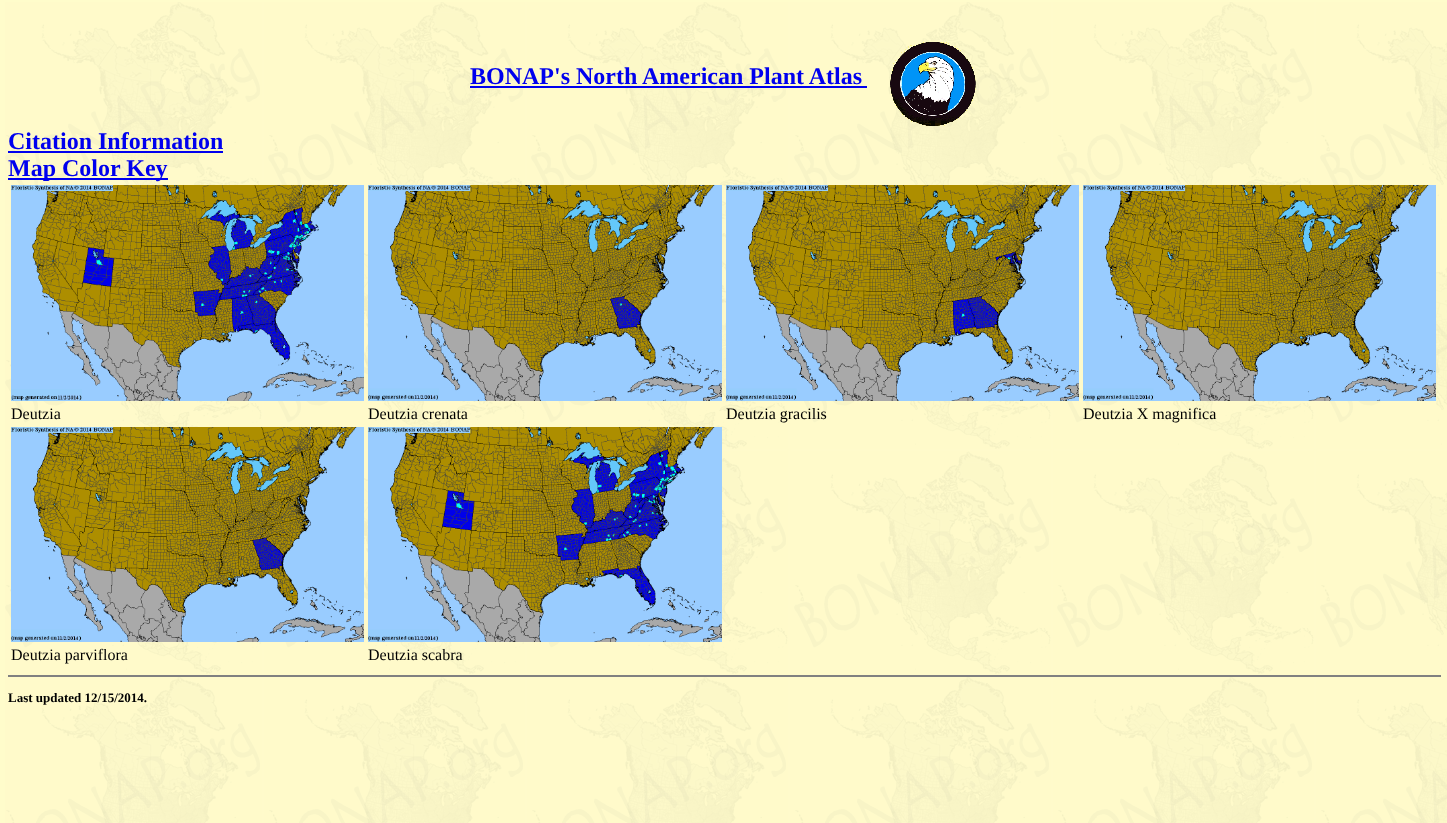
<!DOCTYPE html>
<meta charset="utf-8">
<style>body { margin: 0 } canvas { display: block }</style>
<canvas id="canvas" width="1447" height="823"></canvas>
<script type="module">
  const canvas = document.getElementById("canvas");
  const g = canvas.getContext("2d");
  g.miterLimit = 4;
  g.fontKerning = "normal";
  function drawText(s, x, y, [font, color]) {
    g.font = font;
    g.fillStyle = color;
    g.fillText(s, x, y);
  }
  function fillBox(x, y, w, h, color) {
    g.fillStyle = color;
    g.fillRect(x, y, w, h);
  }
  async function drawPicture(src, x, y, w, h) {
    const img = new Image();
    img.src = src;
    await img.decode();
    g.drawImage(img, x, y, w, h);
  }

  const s1 = ["bold 24px Liberation Serif", "#0000EE"];
  const s2 = ["16px Liberation Serif", "#000000"];
  const s3 = ["bold 13px Liberation Serif", "#000000"];

  fillBox(0, 0, 1447, 823, "#FFFCCB");
  await drawPicture("pic1.png", 5, 2, 1442, 821);
  drawText("BONAP's North American Plant Atlas", 470, 84, s1);
  fillBox(470, 86, 397, 2, "#0000EE");
  await drawPicture("pic2.png", 890, 42, 86, 84);
  drawText("Citation Information", 8, 149, s1);
  fillBox(8, 151, 215, 2, "#0000EE");
  fillBox(8, 178, 160, 2, "#0000EE");
  drawText("Map Color Key", 8, 176, s1);
  await drawPicture("pic3.png", 11, 185, 353, 216);
  drawText("Deutzia", 11, 419, s2);
  await drawPicture("pic4.png", 368, 185, 354, 216);
  drawText("Deutzia crenata", 368, 419, s2);
  await drawPicture("pic5.png", 726, 185, 353, 216);
  drawText("Deutzia gracilis", 726, 419, s2);
  await drawPicture("pic6.png", 1083, 185, 353, 216);
  drawText("Deutzia X magnifica", 1083, 419, s2);
  await drawPicture("pic7.png", 11, 427, 353, 215);
  drawText("Deutzia parviflora", 11, 660, s2);
  await drawPicture("pic8.png", 368, 427, 354, 215);
  drawText("Deutzia scabra", 368, 660, s2);
  fillBox(8, 675, 1433, 2, "#808080");
  drawText("Last updated 12/15/2014.", 8, 702, s3);
</script>
